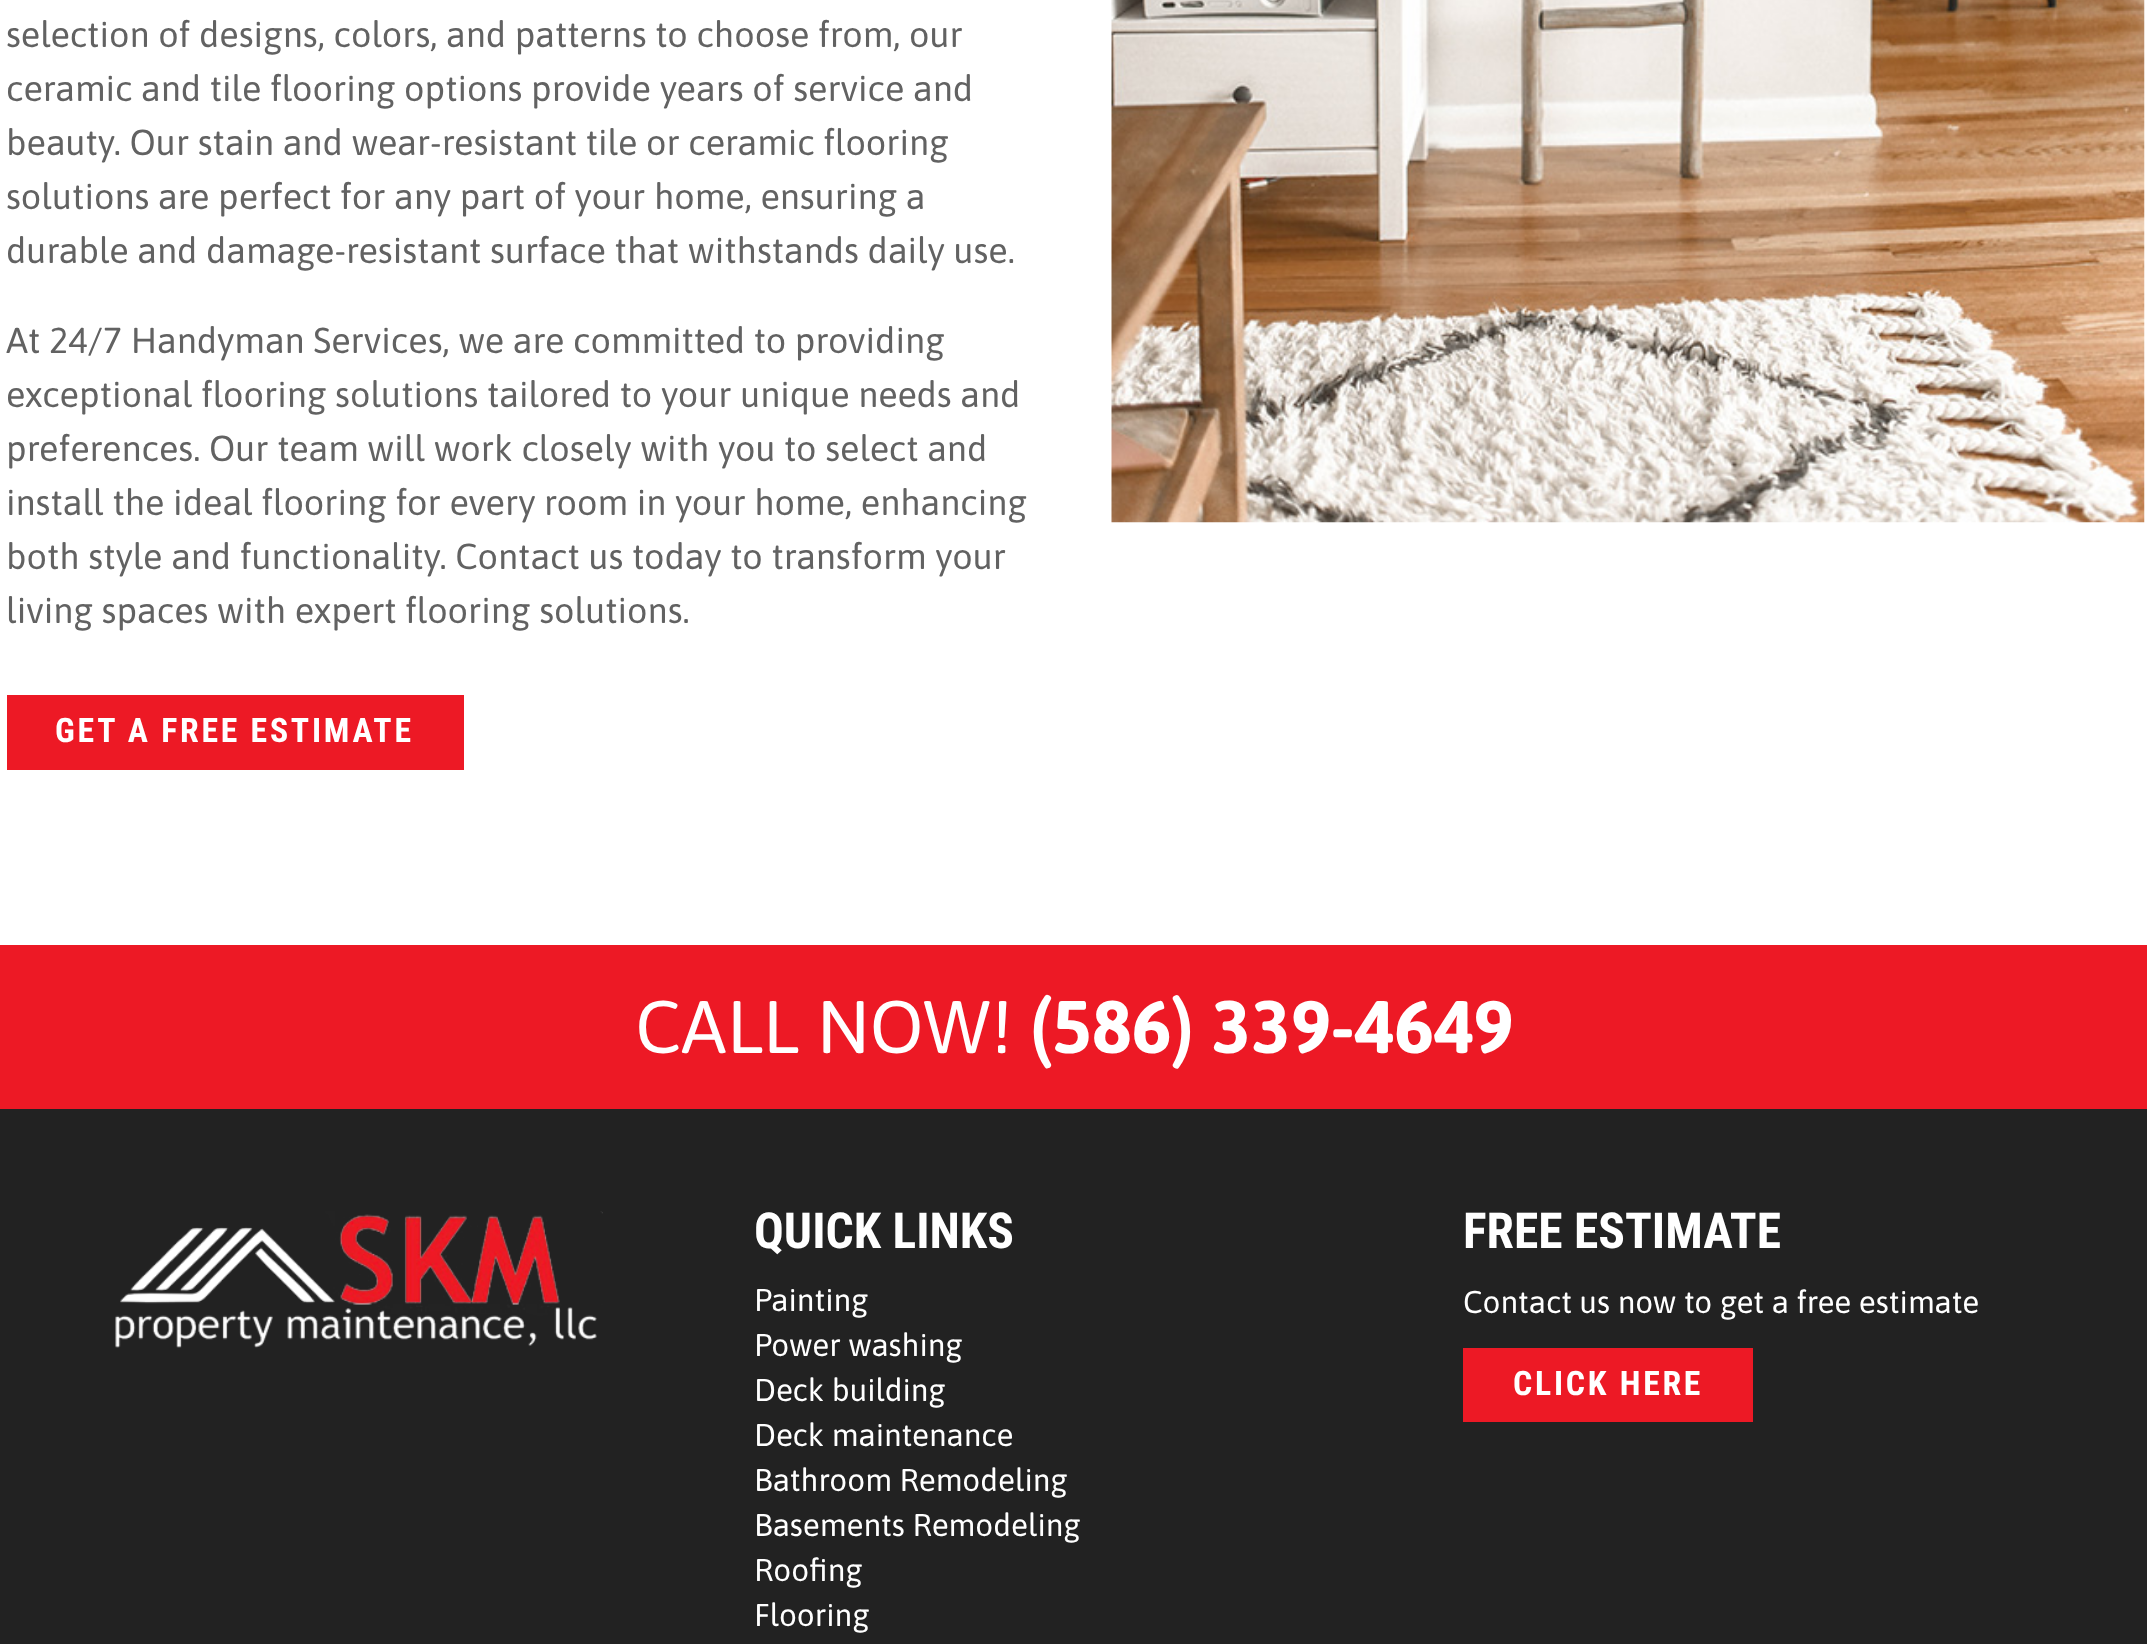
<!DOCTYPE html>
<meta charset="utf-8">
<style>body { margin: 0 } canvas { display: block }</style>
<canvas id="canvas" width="2147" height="1644"></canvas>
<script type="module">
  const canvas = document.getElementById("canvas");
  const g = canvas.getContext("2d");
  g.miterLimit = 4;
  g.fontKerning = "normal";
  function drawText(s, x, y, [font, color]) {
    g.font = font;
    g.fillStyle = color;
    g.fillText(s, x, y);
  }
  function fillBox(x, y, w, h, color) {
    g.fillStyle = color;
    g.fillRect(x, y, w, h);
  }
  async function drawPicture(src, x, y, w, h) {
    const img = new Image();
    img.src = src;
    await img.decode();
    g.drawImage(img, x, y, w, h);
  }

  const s1 = ["36px Asap", "#626262"];
  const s2 = ["bold 33.75px Roboto Condensed", "#FFFFFF"];
  const s3 = ["74.25px Asap", "#FFFFFF"];
  const s4 = ["bold 74.25px Asap", "#FFFFFF"];
  const s5 = ["bold 49.5px Roboto Condensed", "#FFFFFF"];
  const s6 = ["31.5px Asap", "#FFFFFF"];

  fillBox(0, 0, 2147, 1644, "#FFFFFF");
  drawText("selection of designs, colors, and patterns to choose from, our", 6, 47, s1);
  drawText("ceramic and tile flooring options provide years of service and", 6, 101, s1);
  drawText("beauty. Our stain and wear-resistant tile or ceramic flooring", 6, 155, s1);
  drawText("solutions are perfect for any part of your home, ensuring a", 6, 209, s1);
  drawText("durable and damage-resistant surface that withstands daily use.", 6, 263, s1);
  drawText("At 24/7 Handyman Services, we are committed to providing", 6, 353, s1);
  drawText("exceptional flooring solutions tailored to your unique needs and", 6, 407, s1);
  drawText("preferences. Our team will work closely with you to select and", 6, 461, s1);
  drawText("install the ideal flooring for every room in your home, enhancing", 6, 515, s1);
  drawText("both style and functionality. Contact us today to transform your", 6, 569, s1);
  drawText("living spaces with expert flooring solutions.", 6, 623, s1);
  fillBox(7, 695, 457, 75, "#ED1925");
  g.letterSpacing = "2.75px";
  drawText("GET A FREE ESTIMATE", 55, 742, s2);
  await drawPicture("pic1.png", 1111, 0, 1034, 523);
  fillBox(0, 1109, 2147, 535, "#222222");
  fillBox(0, 945, 2147, 164, "#ED1925");
  g.letterSpacing = "0px";
  drawText("CALL NOW!", 635, 1053, s3);
  drawText("(586) 339-4649", 1030, 1053, s4);
  await drawPicture("pic2.png", 115, 1211, 488, 137);
  drawText("QUICK LINKS", 754, 1248, s5);
  drawText("Painting", 754, 1311, s6);
  drawText("Power washing", 754, 1356, s6);
  drawText("Deck building", 754, 1401, s6);
  drawText("Deck maintenance", 754, 1446, s6);
  drawText("Bathroom Remodeling", 754, 1491, s6);
  drawText("Basements Remodeling", 754, 1536, s6);
  drawText("Roofing", 754, 1581, s6);
  drawText("Flooring", 754, 1626, s6);
  drawText("FREE ESTIMATE", 1463, 1248, s5);
  drawText("Contact us now to get a free estimate", 1463, 1313, s6);
  fillBox(1463, 1348, 290, 74, "#ED1925");
  g.letterSpacing = "2.75px";
  drawText("CLICK HERE", 1513, 1395, s2);
</script>
